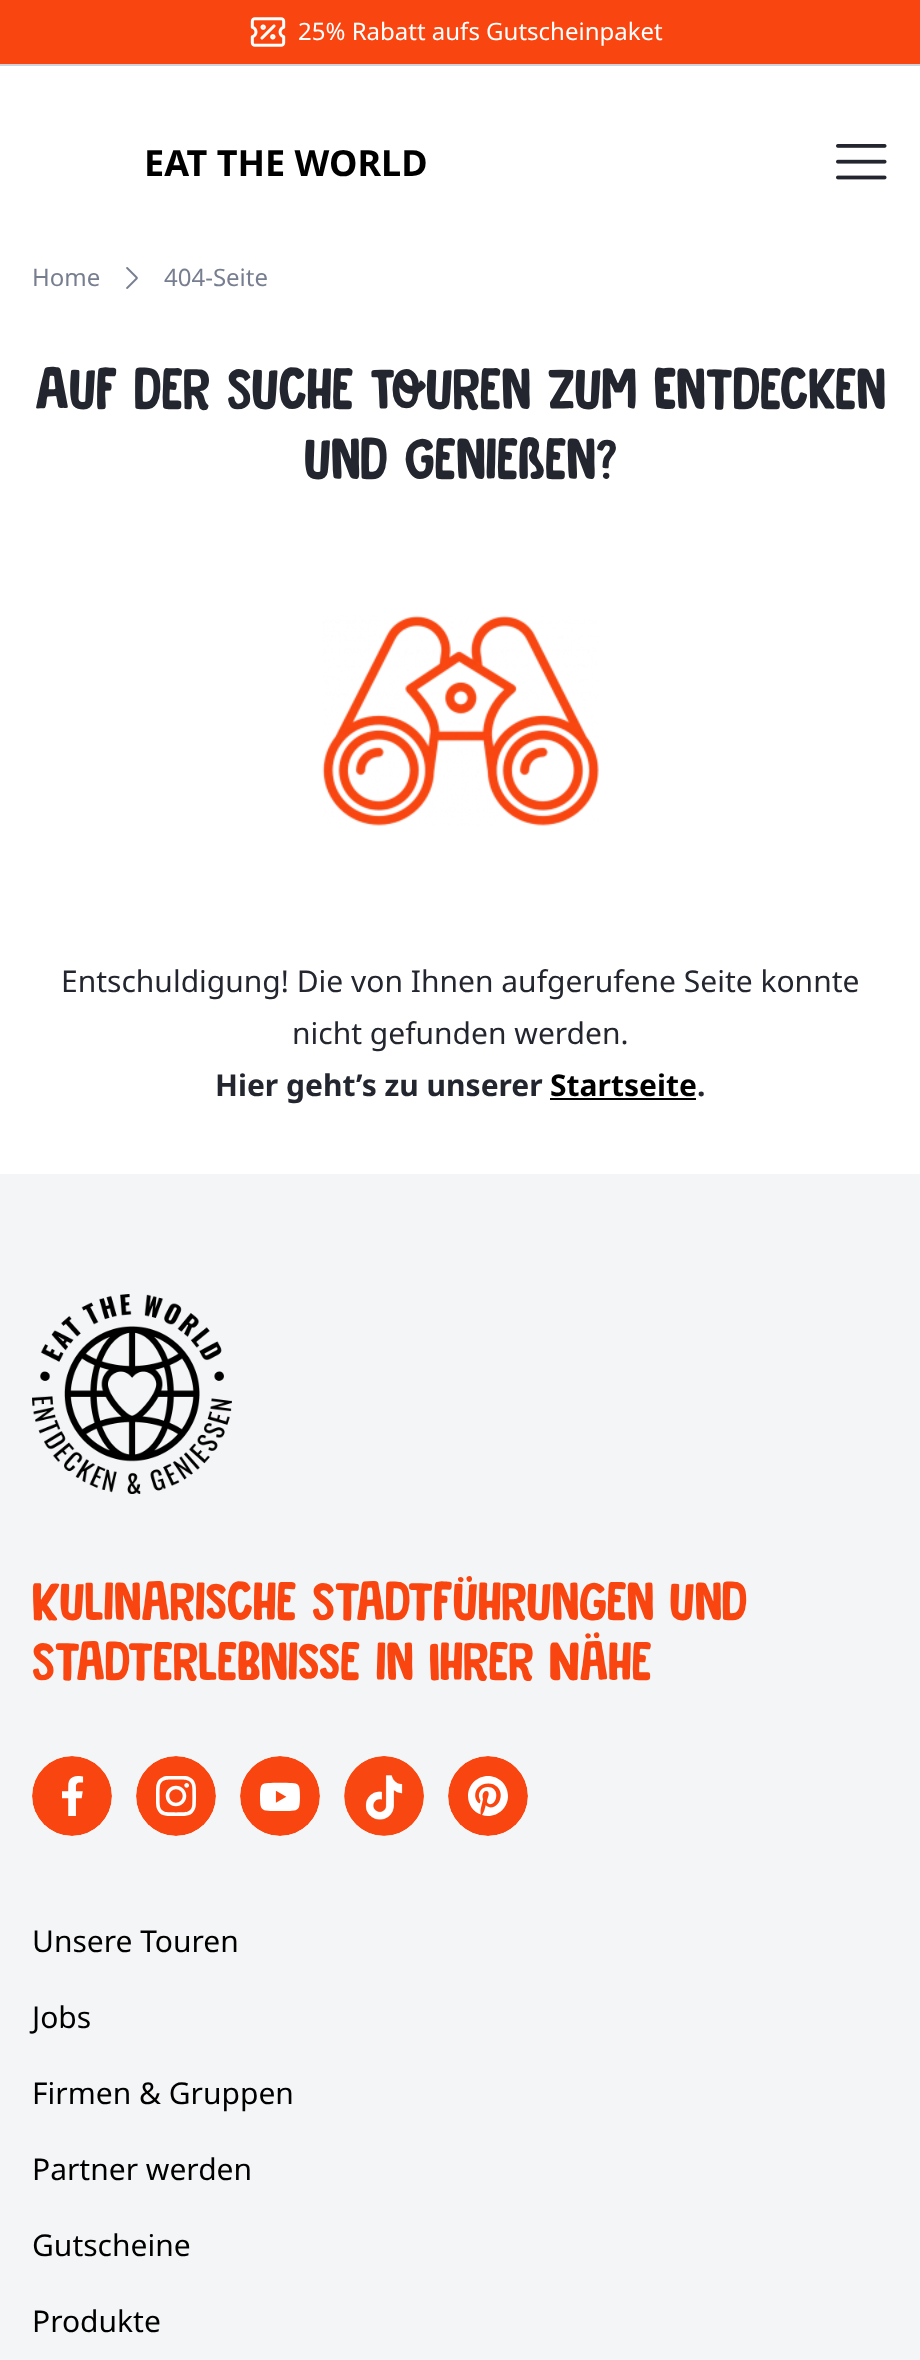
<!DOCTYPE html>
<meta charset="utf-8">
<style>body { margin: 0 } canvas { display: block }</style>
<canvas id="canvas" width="920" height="2360"></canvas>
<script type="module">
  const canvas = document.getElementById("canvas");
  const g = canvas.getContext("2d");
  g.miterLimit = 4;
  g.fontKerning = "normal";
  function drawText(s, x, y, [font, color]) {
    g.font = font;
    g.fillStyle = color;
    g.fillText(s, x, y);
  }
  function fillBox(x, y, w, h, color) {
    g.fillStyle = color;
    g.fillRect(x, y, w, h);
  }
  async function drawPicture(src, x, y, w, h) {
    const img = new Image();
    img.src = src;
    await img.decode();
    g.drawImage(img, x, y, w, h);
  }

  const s1 = ["24px Noto Sans", "#FFFFFF"];
  const s2 = ["bold 36px Noto Sans", "#000000"];
  const s3 = ["24px Noto Sans", "#777E90"];
  const s4 = ["56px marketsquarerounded", "#23262F"];
  const s5 = ["30px Noto Sans", "#23262F"];
  const s6 = ["bold 30px Noto Sans", "#23262F"];
  const s7 = ["bold 30px Noto Sans", "#000000"];
  const s8 = ["52px marketsquarerounded", "#F94611"];
  const s9 = ["30px Noto Sans", "#000000"];

  fillBox(0, 0, 920, 2360, "#FFFFFF");
  fillBox(0, 0, 920, 64, "#F94611");
  fillBox(0, 64, 920, 2, "#CED2DD");
  await drawPicture("pic1.png", 250, 17, 36, 30);
  drawText("25% Rabatt aufs Gutscheinpaket", 298, 40, s1);
  drawText("EAT THE WORLD", 144, 176, s2);
  await drawPicture("pic2.png", 836, 144, 51, 36);
  drawText("Home", 32, 286, s3);
  await drawPicture("pic3.png", 126, 267, 12, 22);
  drawText("404-Seite", 164, 286, s3);
  drawText("Auf der Suche Touren zum Entdecken", 35, 409, s4);
  drawText("und Genießen?", 304, 479, s4);
  await drawPicture("pic4.png", 322, 615, 277, 211);
  drawText("Entschuldigung! Die von Ihnen aufgerufene Seite konnte", 61, 992, s5);
  drawText("nicht gefunden werden.", 292, 1044, s5);
  drawText("Hier geht’s zu unserer", 215, 1096, s6);
  drawText("Startseite", 550, 1096, s7);
  drawText(".", 697, 1096, s6);
  fillBox(550, 1098, 146, 2, "#000000");
  fillBox(0, 1174, 920, 1186, "#F4F5F6");
  await drawPicture("pic5.png", 32, 1294, 200, 200);
  drawText("Kulinarische Stadtführungen und", 32, 1620, s8);
  drawText("Stadterlebnisse in Ihrer Nähe", 32, 1680, s8);
  g.fillStyle = "#FFFFFF";
  g.beginPath();
  g.arc(72, 1796, 40, 0, Math.PI * 2);
  g.fill();
  await drawPicture("pic6.png", 32, 1756, 80, 80);
  g.beginPath();
  g.arc(176, 1796, 40, 0, Math.PI * 2);
  g.fill();
  await drawPicture("pic7.png", 136, 1756, 80, 80);
  g.beginPath();
  g.arc(280, 1796, 40, 0, Math.PI * 2);
  g.fill();
  await drawPicture("pic8.png", 240, 1756, 80, 80);
  g.beginPath();
  g.arc(384, 1796, 40, 0, Math.PI * 2);
  g.fill();
  await drawPicture("pic9.png", 344, 1756, 80, 80);
  g.beginPath();
  g.arc(488, 1796, 40, 0, Math.PI * 2);
  g.fill();
  await drawPicture("pic10.png", 448, 1756, 80, 80);
  drawText("Unsere Touren", 32, 1952, s9);
  drawText("Jobs", 32, 2028, s9);
  drawText("Firmen & Gruppen", 32, 2104, s9);
  drawText("Partner werden", 32, 2180, s9);
  drawText("Gutscheine", 32, 2256, s9);
  drawText("Produkte", 32, 2332, s9);
</script>
